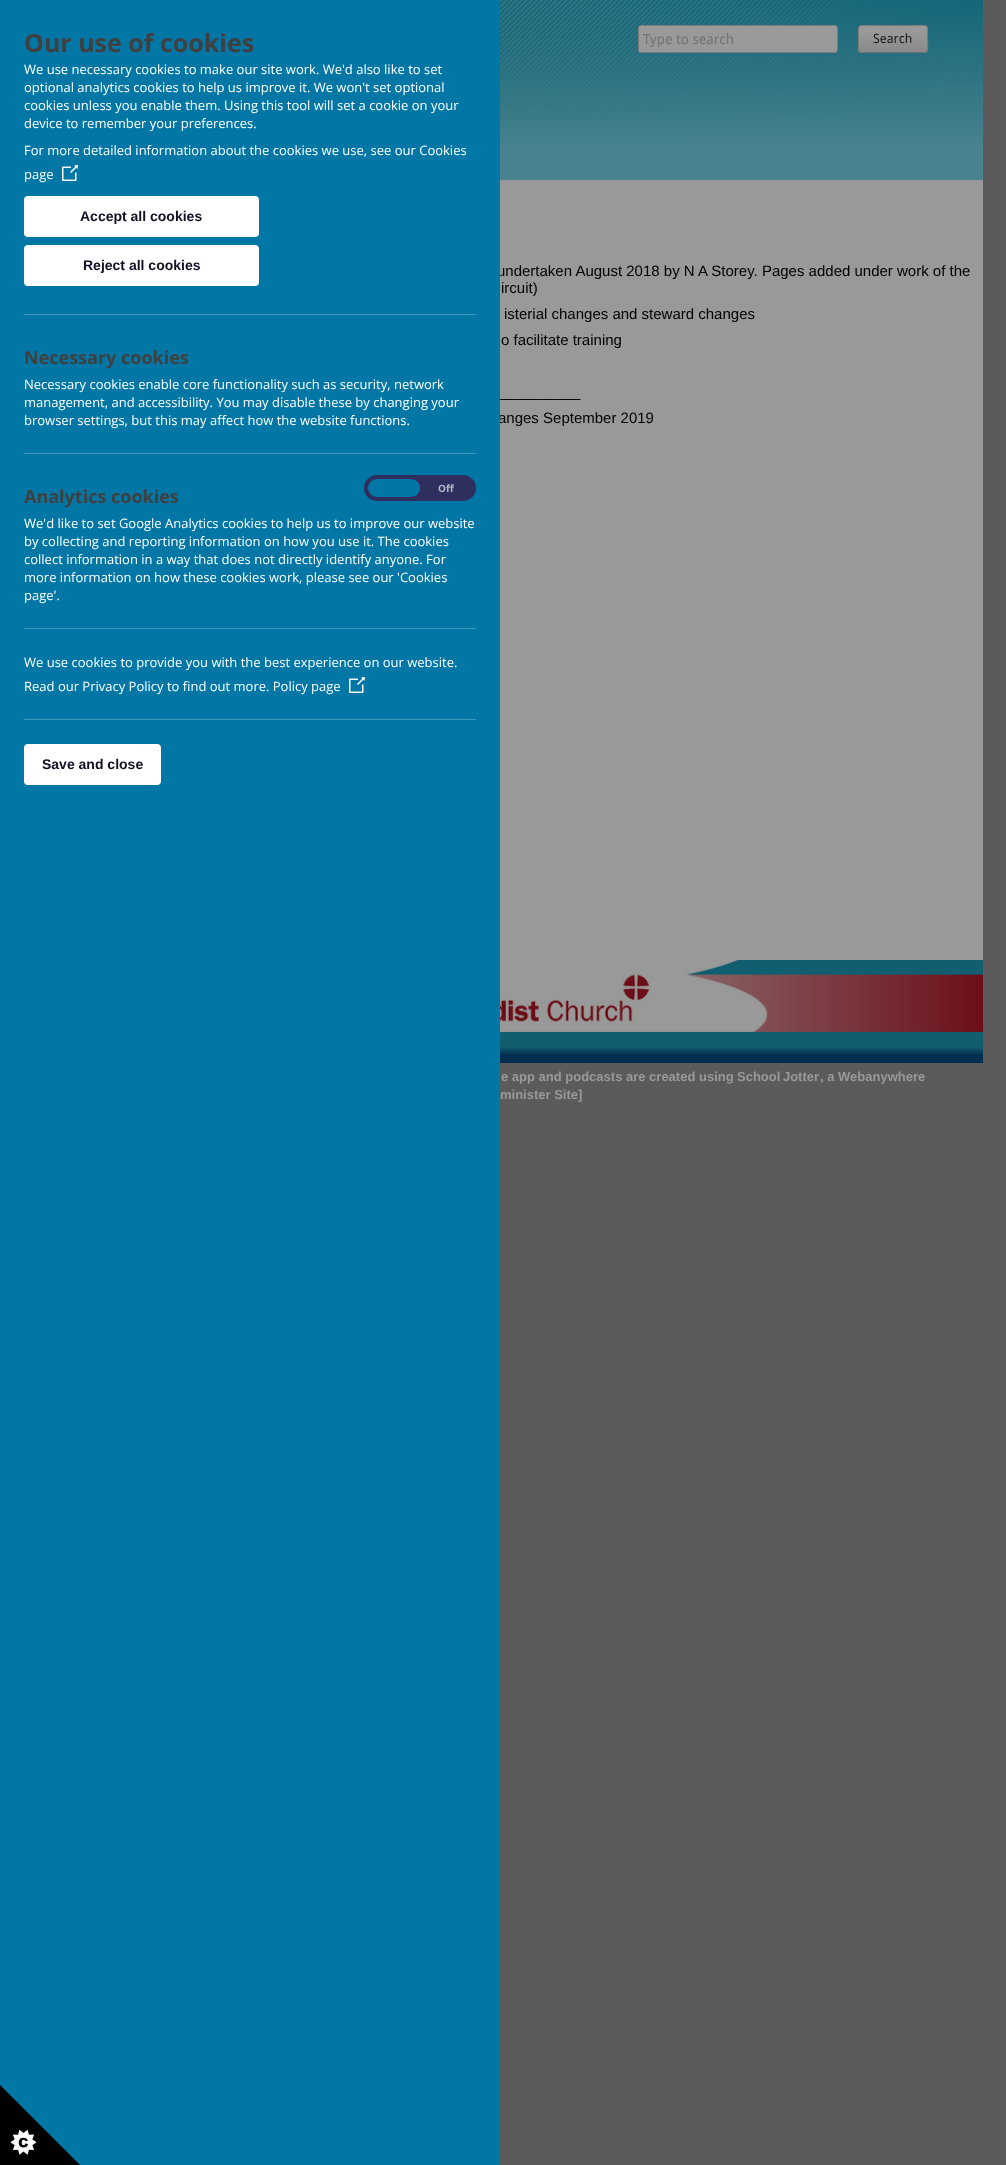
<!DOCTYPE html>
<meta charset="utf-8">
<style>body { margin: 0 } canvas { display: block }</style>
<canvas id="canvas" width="1006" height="2165"></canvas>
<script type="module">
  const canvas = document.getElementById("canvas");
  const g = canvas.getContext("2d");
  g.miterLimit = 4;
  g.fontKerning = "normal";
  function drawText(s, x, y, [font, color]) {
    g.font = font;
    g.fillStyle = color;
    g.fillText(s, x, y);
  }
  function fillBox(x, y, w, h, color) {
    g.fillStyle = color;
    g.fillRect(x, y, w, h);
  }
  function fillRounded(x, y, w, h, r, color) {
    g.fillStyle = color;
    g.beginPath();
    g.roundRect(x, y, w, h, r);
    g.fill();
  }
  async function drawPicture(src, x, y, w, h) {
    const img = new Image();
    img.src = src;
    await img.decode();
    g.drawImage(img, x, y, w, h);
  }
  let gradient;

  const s1 = ["15px Liberation Sans", "#000000"];
  const s2 = ["bold 25px Open Sans", "#404040"];
  const s3 = ["13px Open Sans", "#FFFFFF"];
  const s4 = ["bold 14px Liberation Sans", "#111125"];
  const s5 = ["bold 18px Open Sans", "#404040"];
  const s6 = ["bold 10px Open Sans", "#B6B6C7"];
  const s7 = ["bold 13px Liberation Sans", "#999999"];
  const s8 = ["14px Droid Sans", "#737373"];
  const s9 = ["13px Droid Sans", "#1F1F1F"];

  fillBox(0, 0, 1006, 2165, "#5B5B5B");
  fillBox(500, 180, 483, 780, "#999999");
  drawText("undertaken August 2018 by N A Storey. Pages added under work of the", 497, 276, s1);
  drawText("__________", 497, 397, s1);
  drawText("anges September 2019", 498, 423, s1);
  fillBox(0, 0, 500, 2165, "#0276A5");
  drawText("Our use of cookies", 24, 52, s2);
  drawText("We use necessary cookies to make our site work. We'd also like to set", 24, 74, s3);
  drawText("optional analytics cookies to help us improve it. We won't set optional", 24, 92, s3);
  drawText("cookies unless you enable them. Using this tool will set a cookie on your", 24, 110, s3);
  drawText("device to remember your preferences.", 24, 128, s3);
  drawText("For more detailed information about the cookies we use, see our Cookies", 24, 155, s3);
  drawText("page", 24, 179, s3);
  await drawPicture("pic1.png", 62, 165, 16, 16);
  g.beginPath();
  g.roundRect(25, 197, 233, 39, 3);
  g.fill();
  g.strokeStyle = "#FFFFFF";
  g.lineWidth = 2;
  g.stroke();
  drawText("Accept all cookies", 80, 221, s4);
  g.fillStyle = "#FFFFFF";
  g.beginPath();
  g.roundRect(25, 246, 233, 39, 3);
  g.fill();
  g.stroke();
  drawText("Reject all cookies", 83, 270, s4);
  fillBox(24, 314, 452, 1, "#4198BC");
  drawText("Necessary cookies", 24, 364, s5);
  drawText("Necessary cookies enable core functionality such as security, network", 24, 389, s3);
  drawText("management, and accessibility. You may disable these by changing your", 24, 407, s3);
  drawText("browser settings, but this may affect how the website functions.", 24, 425, s3);
  fillBox(24, 453, 452, 1, "#4198BC");
  g.fillStyle = "#2F2F5F";
  g.beginPath();
  g.roundRect(366, 477, 108, 22, 11);
  g.fill();
  g.strokeStyle = "#2F2F5F";
  g.lineWidth = 4;
  g.stroke();
  fillRounded(368, 479, 52, 18, 9, "#0276A5");
  drawText("Off", 438, 492, s6);
  drawText("Analytics cookies", 24, 503, s5);
  drawText("We'd like to set Google Analytics cookies to help us to improve our website", 24, 528, s3);
  drawText("by collecting and reporting information on how you use it. The cookies", 24, 546, s3);
  drawText("collect information in a way that does not directly identify anyone. For", 24, 564, s3);
  drawText("more information on how these cookies work, please see our 'Cookies", 24, 582, s3);
  drawText("page'.", 24, 600, s3);
  fillBox(24, 628, 452, 1, "#4198BC");
  drawText("We use cookies to provide you with the best experience on our website.", 24, 667, s3);
  drawText("Read our Privacy Policy to find out more. Policy page", 24, 691, s3);
  await drawPicture("pic1.png", 349, 677, 16, 16);
  fillBox(24, 719, 452, 1, "#4198BC");
  g.fillStyle = "#FFFFFF";
  g.beginPath();
  g.roundRect(25, 745, 135, 39, 3);
  g.fill();
  g.strokeStyle = "#FFFFFF";
  g.lineWidth = 2;
  g.stroke();
  drawText("Save and close", 42, 769, s4);
  await drawPicture("pic2.png", 0, 2085, 80, 80);
  await drawPicture("pic3.png", 500, 960, 483, 103);
  drawText("e app and podcasts are created using", 501, 1081, s7);
  g.wordSpacing = "-1px";
  drawText("School Jotter", 737, 1081, s7);
  g.wordSpacing = "0px";
  drawText(", a Webanywhere", 820, 1081, s7);
  drawText("minister Site]", 500, 1099, s7);
  fillBox(500, 144, 483, 36, "#49828E");
  await drawPicture("pic4.png", 500, 0, 483, 144);
  g.fillStyle = "#999999";
  g.beginPath();
  g.roundRect(638.5, 25.5, 199, 27, 2.5);
  g.fill();
  g.strokeStyle = "#7A7A7A";
  g.lineWidth = 1;
  g.stroke();
  g.save();
  g.beginPath();
  g.rect(643, 31, 190, 16);
  g.clip();
  drawText("Type to search", 643, 44, s8);
  g.restore();
  fillRounded(858, 25, 70, 28, 4, "#8A8A8A");
  g.save();
  g.beginPath();
  g.roundRect(858, 25, 70, 28, 4);
  g.clip();
  gradient = g.createLinearGradient(893, 26, 893, 52);
  gradient.addColorStop(0, "#999999");
  gradient.addColorStop(0.25, "#999999");
  gradient.addColorStop(1, "#8A8A8A");
  g.fillStyle = gradient;
  g.fillRect(859, 26, 68, 26);
  g.restore();
  g.beginPath();
  g.moveTo(926.5, 51.5);
  g.lineTo(924.5, 52.5);
  g.lineTo(861.5, 52.5);
  g.lineTo(859.5, 51.5);
  g.strokeStyle = "#707070";
  g.stroke();
  g.beginPath();
  g.moveTo(859.5, 51.5);
  g.bezierCurveTo(857.5, 49, 858.5, 41.5, 858.5, 39);
  g.bezierCurveTo(858.5, 23.5, 856.5, 25.5, 872.5, 25.5);
  g.lineTo(913.5, 25.5);
  g.bezierCurveTo(929.5, 25.5, 927.5, 23.5, 927.5, 39);
  g.bezierCurveTo(927.5, 41.5, 928.5, 49, 926.5, 51.5);
  g.strokeStyle = "#7A7A7A";
  g.stroke();
  drawText("Search", 873, 43, s9);
  drawText("ircuit)", 501, 293, s1);
  drawText("isterial changes and steward changes", 504, 319, s1);
  drawText("o facilitate training", 501, 345, s1);
</script>
